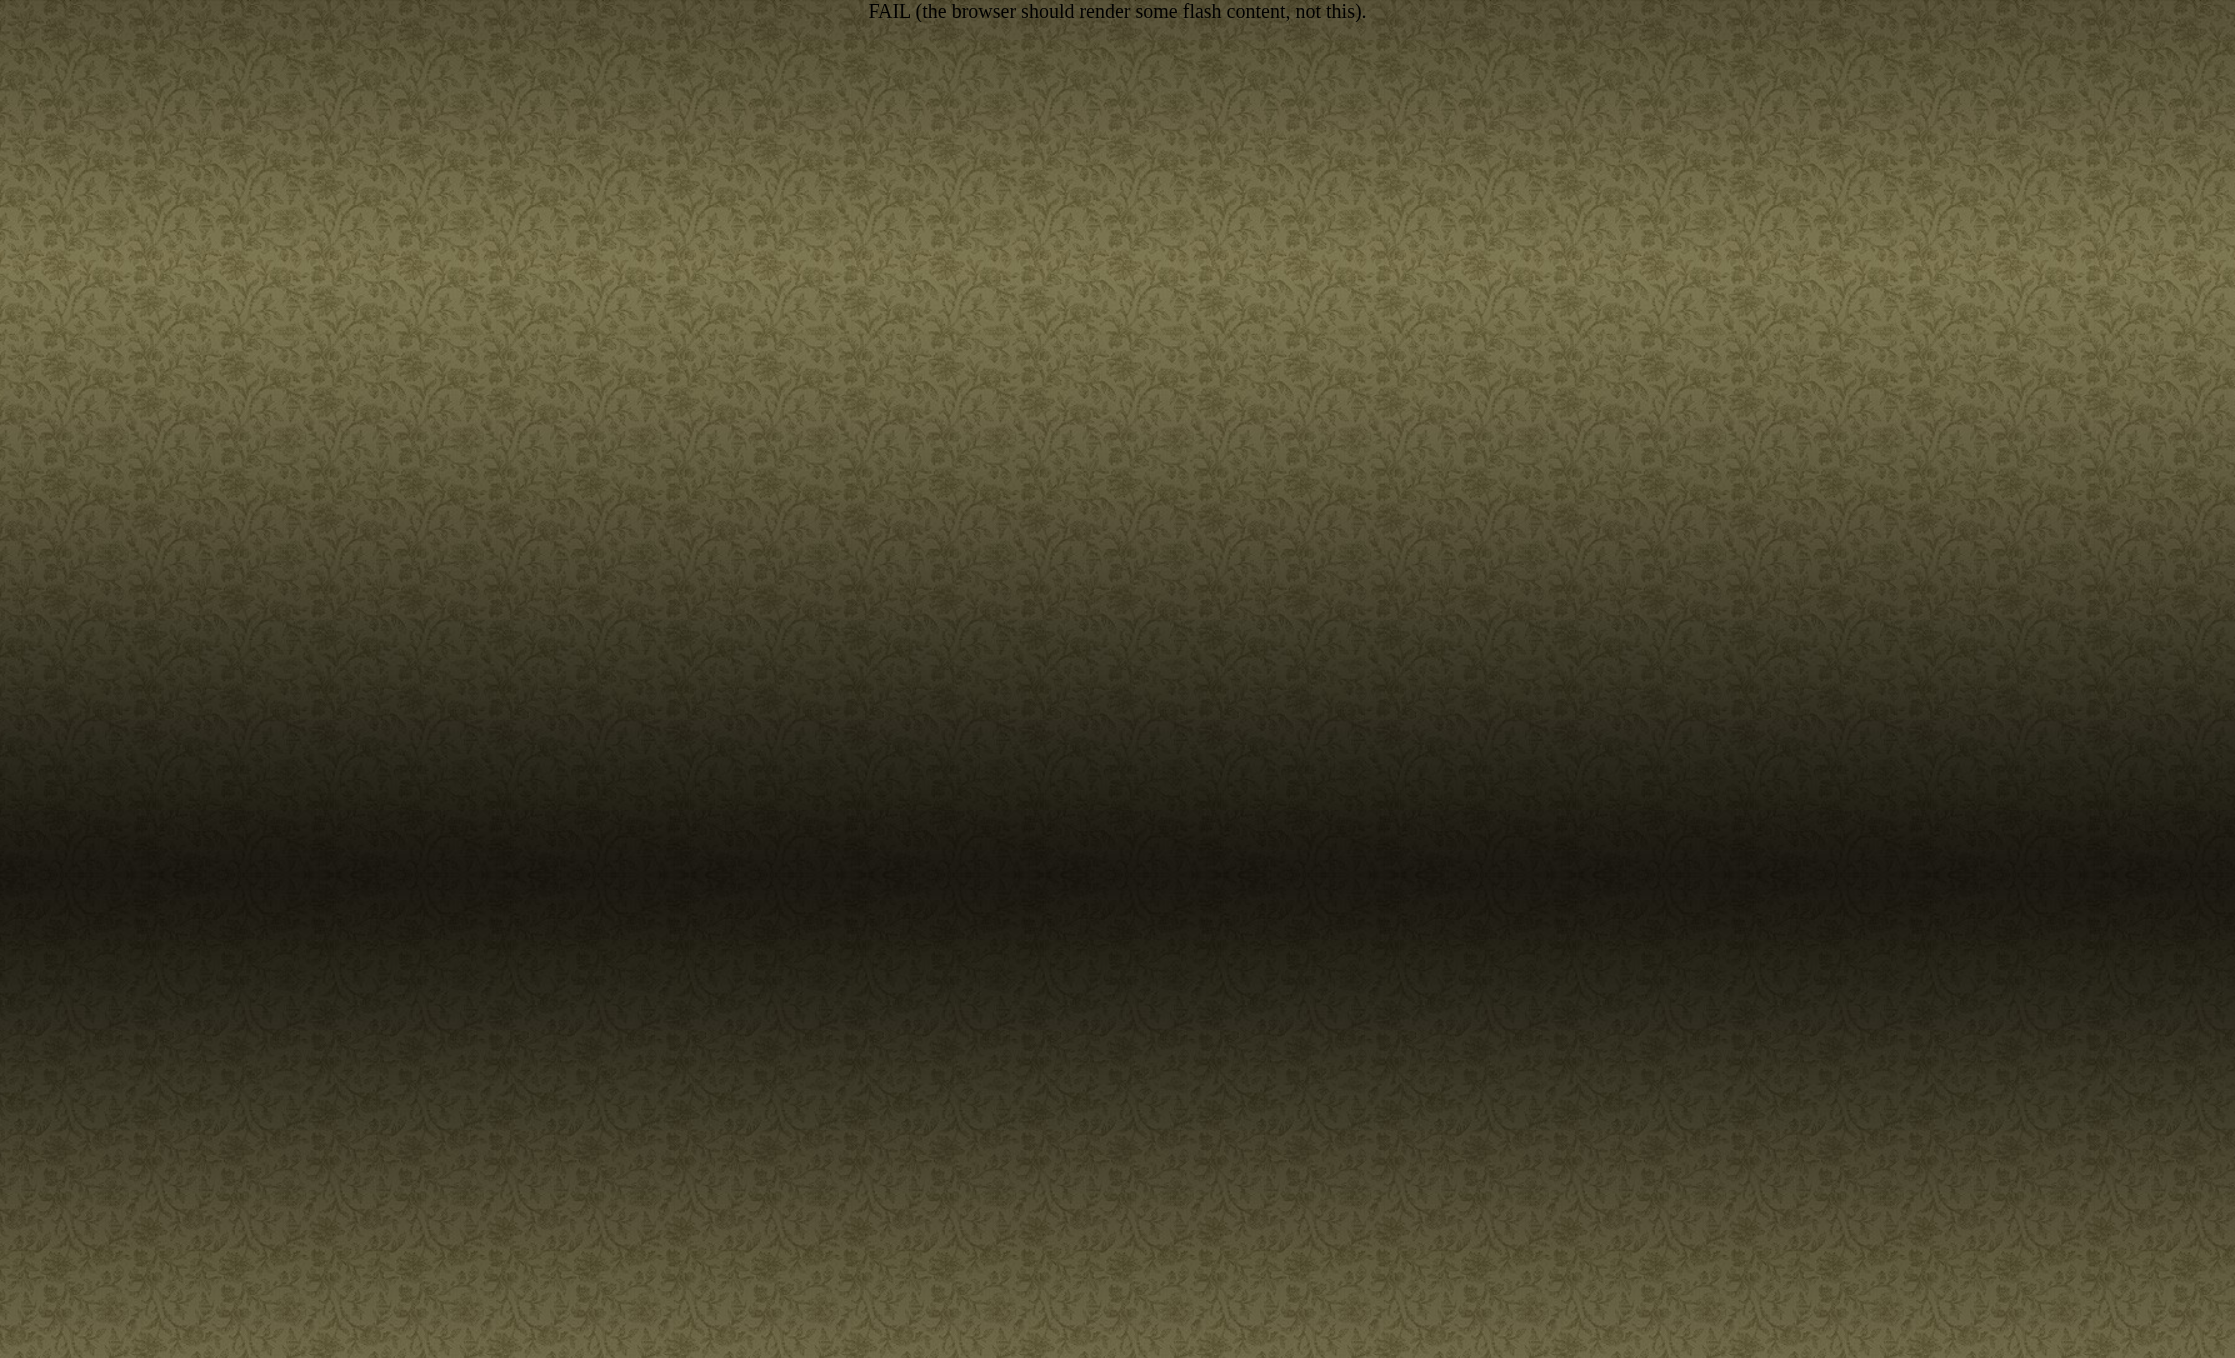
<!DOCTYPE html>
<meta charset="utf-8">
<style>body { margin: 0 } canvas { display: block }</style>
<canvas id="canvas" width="2235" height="1358"></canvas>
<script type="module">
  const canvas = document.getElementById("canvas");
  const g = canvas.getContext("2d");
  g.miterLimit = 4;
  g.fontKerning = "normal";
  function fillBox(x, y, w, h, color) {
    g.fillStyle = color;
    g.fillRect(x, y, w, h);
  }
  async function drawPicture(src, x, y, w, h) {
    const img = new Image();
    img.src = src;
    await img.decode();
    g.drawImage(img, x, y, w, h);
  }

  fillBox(0, 0, 2235, 1358, "#FFFFFF");
  await drawPicture("pic1.png", 0, 0, 2235, 1358);
  await drawPicture("pic2.png", 869, 3, 497, 19);
</script>
